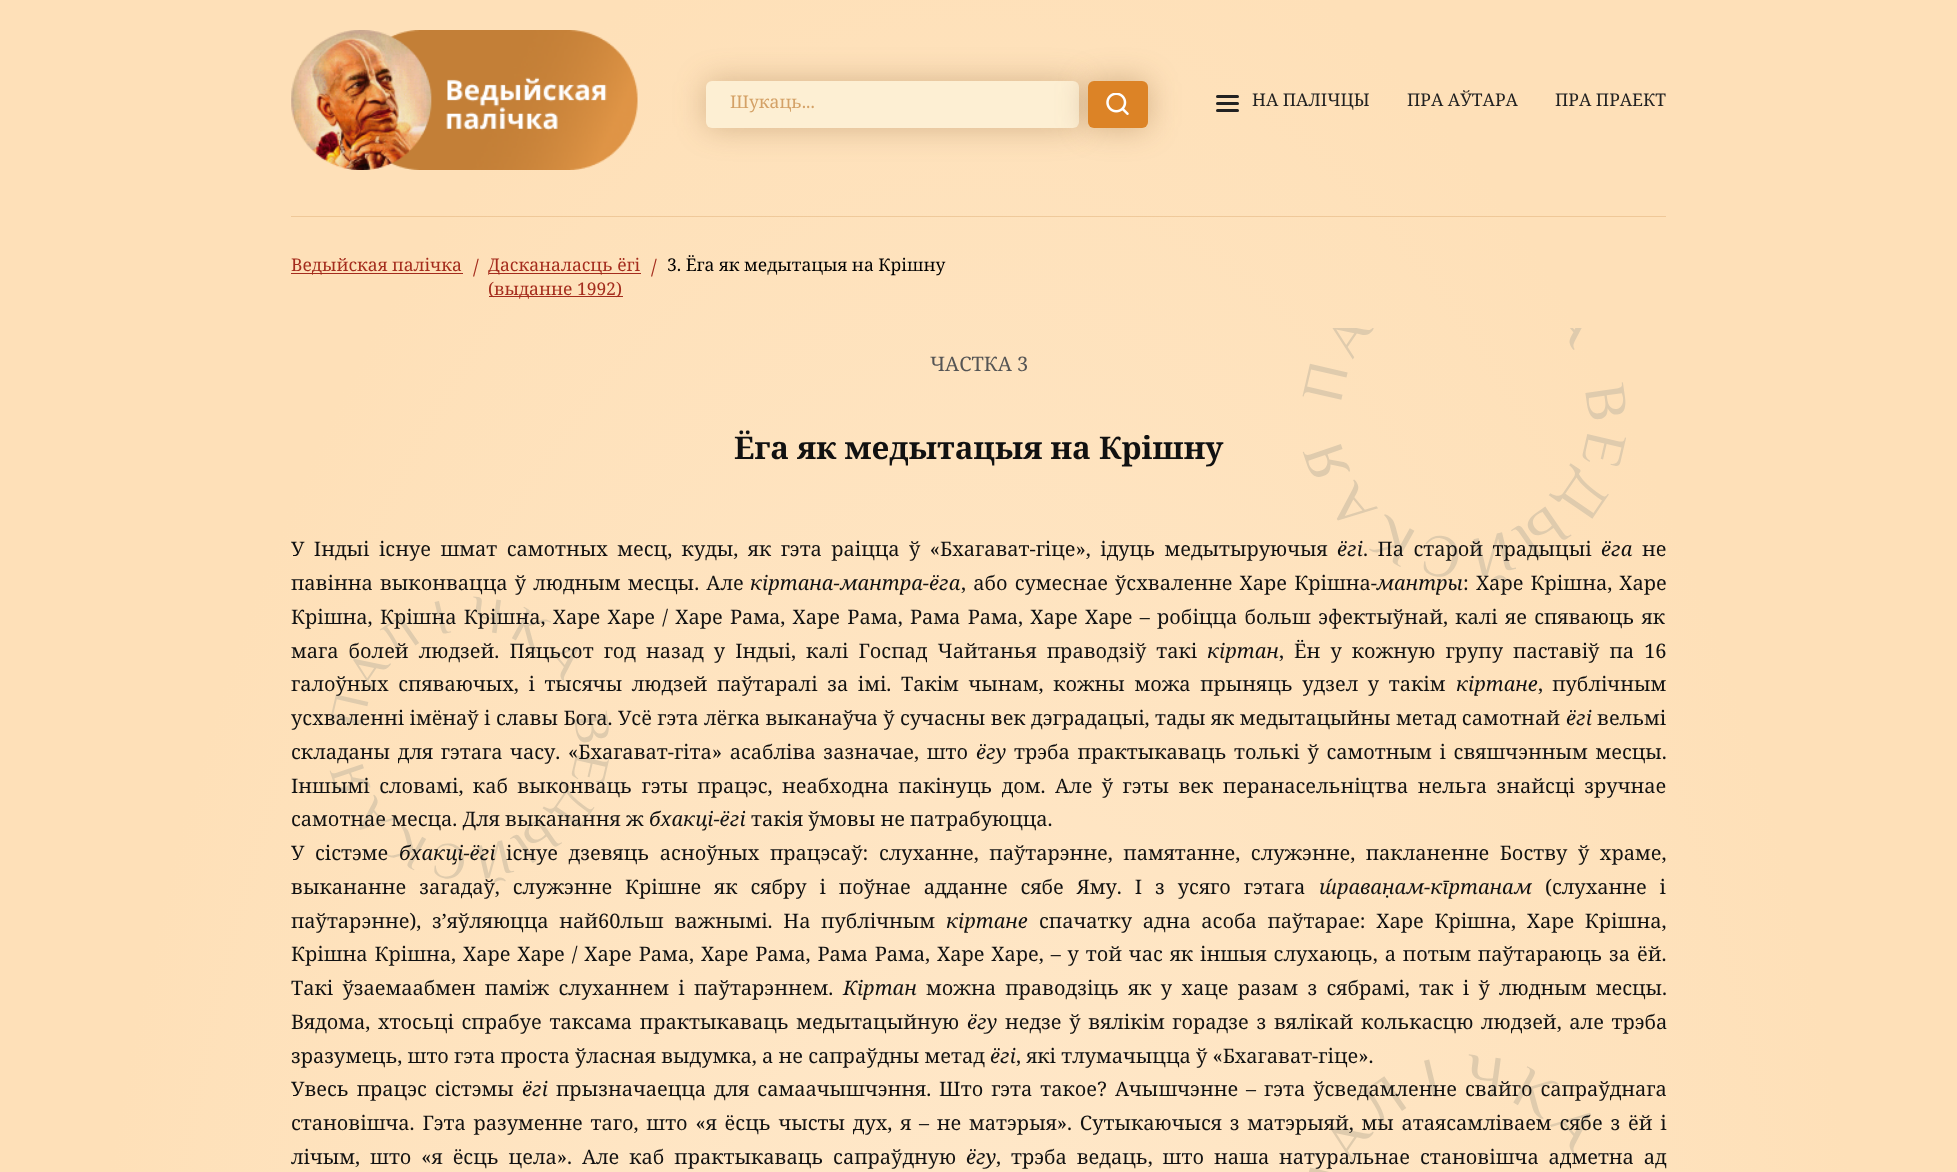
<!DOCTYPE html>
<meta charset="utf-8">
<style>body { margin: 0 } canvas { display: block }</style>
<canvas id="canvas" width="1957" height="1172"></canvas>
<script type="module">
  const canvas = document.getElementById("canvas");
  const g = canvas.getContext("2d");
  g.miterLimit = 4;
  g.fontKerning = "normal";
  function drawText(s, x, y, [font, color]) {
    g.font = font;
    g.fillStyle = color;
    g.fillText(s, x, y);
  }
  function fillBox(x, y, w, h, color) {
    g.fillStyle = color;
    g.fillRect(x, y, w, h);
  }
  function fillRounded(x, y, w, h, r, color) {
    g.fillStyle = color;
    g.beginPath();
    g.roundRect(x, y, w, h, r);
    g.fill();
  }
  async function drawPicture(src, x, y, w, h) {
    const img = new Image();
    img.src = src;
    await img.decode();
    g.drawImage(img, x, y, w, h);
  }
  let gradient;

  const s1 = ["17.5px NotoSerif", "#D4A166"];
  const s2 = ["17.5px NotoSerif", "#222222"];
  const s3 = ["17.5px NotoSerif", "#A42C1D"];
  const s4 = ["20px NotoSerif", "#A42C1D"];
  const s5 = ["17.5px NotoSerif", "#000000"];
  const s6 = ["20px NotoSerif", "#555555"];
  const s7 = ["bold 31.25px NotoSerif", "#111111"];
  const s8 = ["20px NotoSerif", "#111111"];
  const s9 = ["italic 20px NotoSerif", "#111111"];

  fillBox(0, 0, 1957, 1172, "#FFFFFF");
  gradient = g.createRadialGradient(979, 844.21, 0, 979, 844.21, 914);
  gradient.addColorStop(0, "#FFEACE");
  gradient.addColorStop(1, "#FEE0B8");
  g.fillStyle = gradient;
  g.beginPath();
  g.rect(0, 0, 1957, 1172);
  g.save();
  g.clip();
  g.scale(1, 1886 / 914);
  g.fillRect(0, 0, 1957, 568);
  g.restore();
  gradient = g.createRadialGradient(979, 844.21, 0, 979, 844.21, 914);
  gradient.addColorStop(0, "#F0CFA8");
  gradient.addColorStop(1, "#EFC898");
  g.fillStyle = gradient;
  g.beginPath();
  g.rect(291, 216, 1375, 1);
  g.save();
  g.clip();
  g.scale(1, 1886 / 914);
  g.fillRect(0, 0, 1957, 568);
  g.restore();
  await drawPicture("pic1.png", 291, 30, 347, 140);
  g.fillStyle = "rgba(118, 75, 29, 0.3)";
  g.filter = "blur(15.5px)";
  g.beginPath();
  g.roundRect(706, 81, 373, 47, 6);
  g.fill();
  g.filter = "none";
  fillRounded(706, 81, 373, 47, 6, "#FDEFD3");
  drawText("Шукаць...", 730, 108, s1);
  g.fillStyle = "rgba(126, 80, 32, 0.35)";
  g.filter = "blur(15.5px)";
  g.beginPath();
  g.roundRect(1088, 81, 60, 47, 6);
  g.fill();
  g.filter = "none";
  fillRounded(1088, 81, 60, 47, 6, "#DC8326");
  await drawPicture("pic2.png", 1106, 93, 23, 22);
  fillRounded(1216, 95, 23, 3, 1.5, "#222222");
  fillRounded(1216, 102, 23, 3, 1.5, "#222222");
  fillRounded(1216, 109, 23, 3, 1.5, "#222222");
  drawText("НА ПАЛIЧЦЫ", 1252, 106, s2);
  drawText("ПРА АЎТАРА", 1407, 106, s2);
  drawText("ПРА ПРАЕКТ", 1555, 106, s2);
  fillBox(291, 273, 172, 1, "#A42C1D");
  drawText("Ведыйская палічка", 291, 271, s3);
  drawText("/", 473, 274, s4);
  fillBox(489, 273, 152, 1, "#A42C1D");
  drawText("Дасканаласць ёгі", 488, 271, s3);
  fillBox(489, 296, 134, 1, "#A42C1D");
  drawText("(выданне 1992)", 488, 295, s3);
  drawText("/", 651, 274, s4);
  drawText("3. Ёга як медытацыя на Крішну", 667, 271, s5);
  await drawPicture("pic3.png", 329, 328, 1297, 844);
  drawText("ЧАСТКА 3", 930, 371, s6);
  drawText("Ёга як медытацыя на Крішну", 734, 459, s7);
  g.wordSpacing = "4.25px";
  drawText("У Індыі існуе шмат самотных месц, куды, як гэта раіцца ў «Бхагават-гіце», ідуць медытыруючыя", 291, 556, s8);
  g.wordSpacing = "0px";
  drawText("ёгі", 1337, 556, s9);
  g.wordSpacing = "4.25px";
  drawText(". Па старой традыцыі", 1363, 556, s8);
  g.wordSpacing = "0px";
  drawText("ёга", 1601, 556, s9);
  drawText("не", 1642, 556, s8);
  g.wordSpacing = "2px";
  drawText("павінна выконвацца ў людным месцы. Але", 291, 590, s8);
  g.wordSpacing = "0px";
  drawText("кіртана-мантра-ёга", 750, 590, s9);
  g.wordSpacing = "2px";
  drawText(", або сумеснае ўсхваленне Харе Крішна-", 961, 590, s8);
  g.wordSpacing = "0px";
  drawText("мантры", 1376, 590, s9);
  g.wordSpacing = "2px";
  drawText(": Харе Крішна, Харе", 1463, 590, s8);
  g.wordSpacing = "2.1px";
  drawText("Крішна, Крішна Крішна, Харе Харе / Харе Рама, Харе Рама, Рама Рама, Харе Харе – робіцца больш эфектыўнай, калі яе спяваюць як", 291, 624, s8);
  g.wordSpacing = "4.9px";
  drawText("мага болей людзей. Пяцьсот год назад у Індыі, калі Госпад Чайтанья праводзіў такі", 291, 658, s8);
  g.wordSpacing = "0px";
  drawText("кіртан", 1207, 658, s9);
  g.wordSpacing = "4.9px";
  drawText(", Ён у кожную групу паставіў па 16", 1279, 658, s8);
  g.wordSpacing = "4.4px";
  drawText("галоўных спяваючых, і тысячы людзей паўтаралі за імі. Такім чынам, кожны можа прыняць удзел у такім", 291, 691, s8);
  g.wordSpacing = "0px";
  drawText("кіртане", 1456, 691, s9);
  g.wordSpacing = "4px";
  drawText(", публічным", 1538, 691, s8);
  g.wordSpacing = "0.25px";
  drawText("усхваленні імёнаў і славы Бога. Усё гэта лёгка выканаўча ў сучасны век дэградацыі, тады як медытацыйны метад самотнай", 291, 725, s8);
  g.wordSpacing = "0px";
  drawText("ёгі", 1566, 725, s9);
  drawText("вельмі", 1597, 725, s8);
  g.wordSpacing = "2.5px";
  drawText("складаны для гэтага часу. «Бхагават-гіта» асабліва зазначае, што", 291, 759, s8);
  g.wordSpacing = "0px";
  drawText("ёгу", 976, 759, s9);
  g.wordSpacing = "2.5px";
  drawText("трэба практыкаваць толькі ў самотным і свяшчэнным месцы.", 1014, 759, s8);
  g.wordSpacing = "4.25px";
  drawText("Іншымі словамі, каб выконваць гэты працэс, неабходна пакінуць дом. Але ў гэты век перанасельніцтва нельга знайсці зручнае", 291, 793, s8);
  g.wordSpacing = "0px";
  drawText("самотнае месца. Для выканання ж", 291, 826, s8);
  drawText("бхакці-ёгі", 649, 826, s9);
  drawText("такія ўмовы не патрабуюцца.", 751, 826, s8);
  g.wordSpacing = "5.4px";
  drawText("У сістэме", 291, 860, s8);
  g.wordSpacing = "0px";
  drawText("бхакці-ёгі", 399, 860, s9);
  g.wordSpacing = "5.4px";
  drawText("існуе дзевяць асноўных працэсаў: слуханне, паўтарэнне, памятанне, служэнне, пакланенне Боству ў храме,", 506, 860, s8);
  g.wordSpacing = "7.75px";
  drawText("выкананне загадаў, служэнне Крішне як сябру і поўнае адданне сябе Яму. І з усяго гэтага", 291, 894, s8);
  g.wordSpacing = "0px";
  drawText("ш́раван̣ам-кīртанам", 1319, 894, s9);
  g.wordSpacing = "7.75px";
  drawText("(слуханне і", 1545, 894, s8);
  g.wordSpacing = "5.5px";
  drawText("паўтарэнне), з’яўляюцца най60льш важнымі. На публічным", 291, 928, s8);
  g.wordSpacing = "0px";
  drawText("кіртане", 946, 928, s9);
  g.wordSpacing = "5.5px";
  drawText("спачатку адна асоба паўтарае: Харе Крішна, Харе Крішна,", 1039, 928, s8);
  g.wordSpacing = "1.7px";
  drawText("Крішна Крішна, Харе Харе / Харе Рама, Харе Рама, Рама Рама, Харе Харе, – у той час як іншыя слухаюць, а потым паўтараюць за ёй.", 291, 961, s8);
  g.wordSpacing = "4.1px";
  drawText("Такі ўзаемаабмен паміж слуханнем і паўтарэннем.", 291, 995, s8);
  g.wordSpacing = "0px";
  drawText("Кіртан", 843, 995, s9);
  g.wordSpacing = "4.1px";
  drawText("можна праводзіць як у хаце разам з сябрамі, так і ў людным месцы.", 926, 995, s8);
  g.wordSpacing = "2.5px";
  drawText("Вядома, хтосьці спрабуе таксама практыкаваць медытацыйную", 291, 1029, s8);
  g.wordSpacing = "0px";
  drawText("ёгу", 967, 1029, s9);
  g.wordSpacing = "2.5px";
  drawText("недзе ў вялікім горадзе з вялікай колькасцю людзей, але трэба", 1005, 1029, s8);
  g.wordSpacing = "0px";
  drawText("зразумець, што гэта проста ўласная выдумка, а не сапраўдны метад", 291, 1063, s8);
  drawText("ёгі", 990, 1063, s9);
  drawText(", які тлумачыцца ў «Бхагават-гіце».", 1016, 1063, s8);
  g.wordSpacing = "2.75px";
  drawText("Увесь працэс сістэмы", 291, 1096, s8);
  g.wordSpacing = "0px";
  drawText("ёгі", 522, 1096, s9);
  g.wordSpacing = "2.75px";
  drawText("прызначаецца для самаачышчэння. Што гэта такое? Ачышчэнне – гэта ўсведамленне свайго сапраўднага", 556, 1096, s8);
  g.wordSpacing = "2.6px";
  drawText("становішча. Гэта разуменне таго, што «я ёсць чысты дух, я – не матэрыя». Сутыкаючыся з матэрыяй, мы атаясамліваем сябе з ёй і", 291, 1130, s8);
  g.wordSpacing = "4.75px";
  drawText("лічым, што «я ёсць цела». Але каб практыкаваць сапраўдную", 291, 1164, s8);
  g.wordSpacing = "0px";
  drawText("ёгу", 966, 1164, s9);
  g.wordSpacing = "4.75px";
  drawText(", трэба ведаць, што наша натуральнае становішча адметна ад", 996, 1164, s8);
</script>
